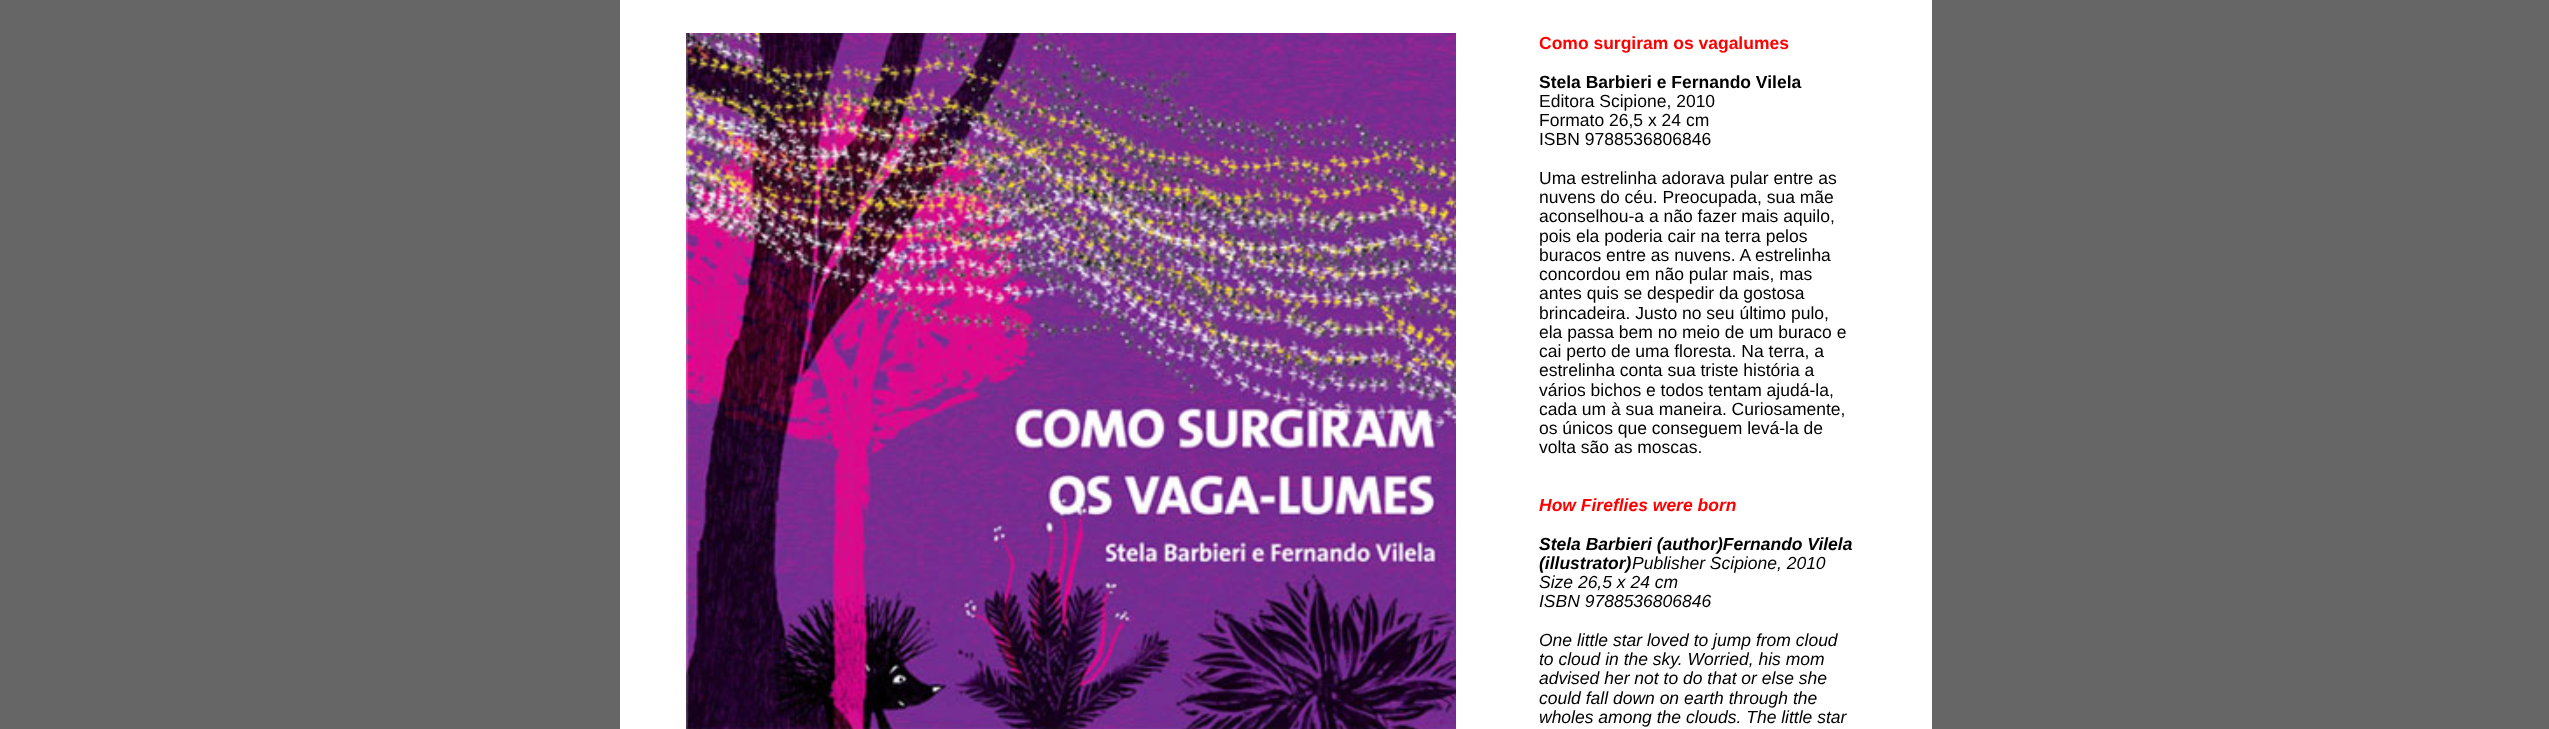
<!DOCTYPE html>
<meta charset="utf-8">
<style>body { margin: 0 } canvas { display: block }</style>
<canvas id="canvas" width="2549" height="729"></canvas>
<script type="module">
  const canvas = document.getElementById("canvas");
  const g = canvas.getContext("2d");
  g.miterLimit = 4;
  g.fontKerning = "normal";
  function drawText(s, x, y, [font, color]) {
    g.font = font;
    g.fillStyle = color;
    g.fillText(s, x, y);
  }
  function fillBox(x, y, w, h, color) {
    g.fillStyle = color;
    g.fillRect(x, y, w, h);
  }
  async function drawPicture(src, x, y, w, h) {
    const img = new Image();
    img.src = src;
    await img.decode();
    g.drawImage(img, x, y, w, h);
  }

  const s1 = ["bold 17.5px Liberation Sans", "#FF0000"];
  const s2 = ["bold 17.5px Liberation Sans", "#000000"];
  const s3 = ["17.5px Liberation Sans", "#000000"];
  const s4 = ["italic bold 17.5px Liberation Sans", "#FF0000"];
  const s5 = ["italic bold 17.5px Liberation Sans", "#000000"];
  const s6 = ["italic 17.5px Liberation Sans", "#000000"];

  fillBox(0, 0, 2549, 729, "#666666");
  fillBox(620, 0, 1312, 729, "#FFFFFF");
  await drawPicture("pic1.png", 686, 33, 770, 696);
  drawText("Como surgiram os vagalumes", 1539, 49, s1);
  drawText("Stela Barbieri e Fernando Vilela", 1539, 88, s2);
  drawText("Editora Scipione, 2010", 1539, 107, s3);
  drawText("Formato 26,5 x 24 cm", 1539, 126, s3);
  drawText("ISBN 9788536806846", 1539, 145, s3);
  drawText("Uma estrelinha adorava pular entre as", 1539, 184, s3);
  drawText("nuvens do céu. Preocupada, sua mãe", 1539, 203, s3);
  drawText("aconselhou-a a não fazer mais aquilo,", 1539, 222, s3);
  drawText("pois ela poderia cair na terra pelos", 1539, 242, s3);
  drawText("buracos entre as nuvens. A estrelinha", 1539, 261, s3);
  drawText("concordou em não pular mais, mas", 1539, 280, s3);
  drawText("antes quis se despedir da gostosa", 1539, 299, s3);
  drawText("brincadeira. Justo no seu último pulo,", 1539, 319, s3);
  drawText("ela passa bem no meio de um buraco e", 1539, 338, s3);
  drawText("cai perto de uma floresta. Na terra, a", 1539, 357, s3);
  drawText("estrelinha conta sua triste história a", 1539, 376, s3);
  drawText("vários bichos e todos tentam ajudá-la,", 1539, 396, s3);
  drawText("cada um à sua maneira. Curiosamente,", 1539, 415, s3);
  drawText("os únicos que conseguem levá-la de", 1539, 434, s3);
  drawText("volta são as moscas.", 1539, 453, s3);
  drawText("How Fireflies were born", 1539, 511, s4);
  drawText("Stela Barbieri (author)Fernando Vilela", 1539, 550, s5);
  drawText("(illustrator)", 1539, 569, s5);
  drawText("Publisher Scipione, 2010", 1632, 569, s6);
  drawText("Size 26,5 x 24 cm", 1539, 588, s6);
  drawText("ISBN 9788536806846", 1539, 607, s6);
  drawText("One little star loved to jump from cloud", 1539, 646, s6);
  drawText("to cloud in the sky. Worried, his mom", 1539, 665, s6);
  drawText("advised her not to do that or else she", 1539, 684, s6);
  drawText("could fall down on earth through the", 1539, 704, s6);
  drawText("wholes among the clouds. The little star", 1539, 723, s6);
</script>
